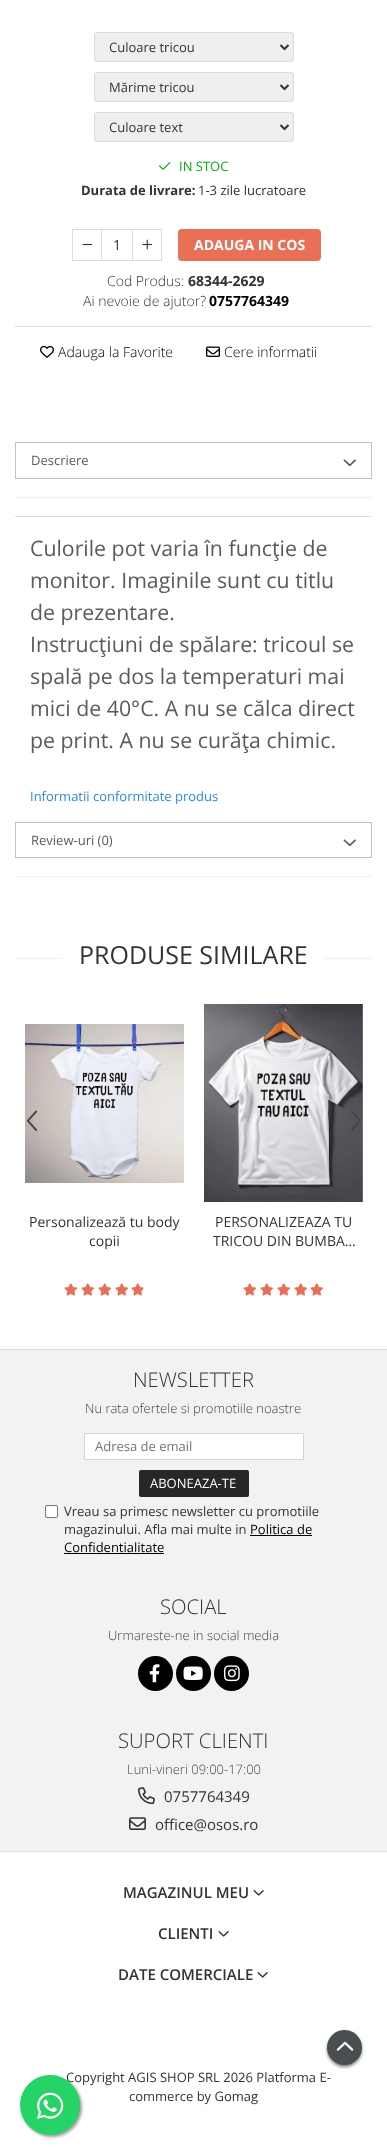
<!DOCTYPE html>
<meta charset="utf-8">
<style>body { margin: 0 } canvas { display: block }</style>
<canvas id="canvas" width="387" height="2155"></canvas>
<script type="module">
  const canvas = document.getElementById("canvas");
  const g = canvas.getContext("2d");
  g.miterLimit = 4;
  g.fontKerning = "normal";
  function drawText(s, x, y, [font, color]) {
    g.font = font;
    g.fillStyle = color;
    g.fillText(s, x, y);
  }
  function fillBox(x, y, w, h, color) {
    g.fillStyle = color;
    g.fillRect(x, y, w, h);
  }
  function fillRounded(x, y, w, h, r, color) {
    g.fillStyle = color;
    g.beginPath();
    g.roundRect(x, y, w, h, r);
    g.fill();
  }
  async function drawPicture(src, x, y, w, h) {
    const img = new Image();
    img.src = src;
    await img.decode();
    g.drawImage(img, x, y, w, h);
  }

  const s1 = ["13px Open Sans", "#333333"];
  const s2 = ["13px Open Sans", "#11A717"];
  const s3 = ["bold 13px Open Sans", "#333333"];
  const s4 = ["14px Open Sans", "#333333"];
  const s5 = ["bold 14px Open Sans", "#FFFFFF"];
  const s6 = ["300 14px Open Sans", "#333333"];
  const s7 = ["bold 14px Open Sans", "#333333"];
  const s8 = ["bold 14px Open Sans", "#000000"];
  const s9 = ["300 14px Open Sans", "#000000"];
  const s10 = ["13px Open Sans", "#5B5B5B"];
  const s11 = ["21.3px Open Sans", "#5B5B5B"];
  const s12 = ["13px Open Sans", "#3388EB"];
  const s13 = ["25px Open Sans", "#333333"];
  const s14 = ["300 20.25px Open Sans", "#333333"];
  const s15 = ["300 13px Open Sans", "#444444"];
  const s16 = ["13px Open Sans", "#757575"];
  const s17 = ["13px Open Sans", "#FFFFFF"];
  const s18 = ["13px Open Sans", "#000000"];
  const s19 = ["15px Open Sans", "#333333"];
  const s20 = ["600 15px Open Sans", "#333333"];

  fillBox(0, 0, 387, 2155, "#FFFFFF");
  g.fillStyle = "#EFEFEF";
  g.beginPath();
  g.roundRect(94.5, 32.5, 199, 29, 2.5);
  g.fill();
  g.strokeStyle = "#DBDBDB";
  g.stroke();
  g.beginPath();
  g.moveTo(280.5, 45);
  g.lineTo(284.5, 49);
  g.lineTo(288.5, 45);
  g.strokeStyle = "#333333";
  g.lineWidth = 2;
  g.stroke();
  drawText("Culoare tricou", 109, 52, s1);
  g.fillStyle = "#EFEFEF";
  g.beginPath();
  g.roundRect(94.5, 72.5, 199, 29, 2.5);
  g.fill();
  g.strokeStyle = "#DBDBDB";
  g.lineWidth = 1;
  g.stroke();
  g.beginPath();
  g.moveTo(280.5, 85);
  g.lineTo(284.5, 89);
  g.lineTo(288.5, 85);
  g.strokeStyle = "#333333";
  g.lineWidth = 2;
  g.stroke();
  drawText("Mărime tricou", 109, 92, s1);
  g.fillStyle = "#EFEFEF";
  g.beginPath();
  g.roundRect(94.5, 112.5, 199, 29, 2.5);
  g.fill();
  g.strokeStyle = "#DBDBDB";
  g.lineWidth = 1;
  g.stroke();
  g.beginPath();
  g.moveTo(280.5, 125);
  g.lineTo(284.5, 129);
  g.lineTo(288.5, 125);
  g.strokeStyle = "#333333";
  g.lineWidth = 2;
  g.stroke();
  drawText("Culoare text", 109, 132, s1);
  await drawPicture("pic1.png", 159, 162, 12, 8);
  drawText("IN STOC", 179, 171, s2);
  drawText("Durata de livrare:", 81, 195, s3);
  drawText("1-3 zile lucratoare", 198, 195, s1);
  g.strokeStyle = "#DBDBDB";
  g.lineWidth = 1;
  g.strokeRect(72.5, 229.5, 29, 31);
  await drawPicture("pic2.png", 82, 243, 11, 3);
  fillBox(102, 229, 30, 1, "#DBDBDB");
  fillBox(102, 260, 30, 1, "#DBDBDB");
  drawText("1", 113, 250, s4);
  g.strokeRect(132.5, 229.5, 29, 31);
  await drawPicture("pic3.png", 142, 239, 11, 11);
  fillRounded(178, 229, 143, 32, 4, "#E96F56");
  drawText("ADAUGA IN COS", 194, 250, s5);
  drawText("Cod Produs:", 107, 286, s6);
  drawText("68344-2629", 188, 286, s7);
  drawText("Ai nevoie de ajutor?", 83, 306, s6);
  drawText("0757764349", 209, 306, s8);
  fillBox(15, 326, 357, 1, "#DBDBDB");
  await drawPicture("pic4.png", 40, 345, 14, 13);
  drawText("Adauga la Favorite", 58, 357, s9);
  await drawPicture("pic5.png", 206, 346, 14, 11);
  drawText("Cere informatii", 224, 357, s9);
  g.strokeStyle = "#C1C1C1";
  g.strokeRect(15.5, 442.5, 356, 36);
  drawText("Descriere", 31, 465, s10);
  await drawPicture("pic6.png", 343, 459, 13, 8);
  fillBox(15, 497, 357, 1, "#EEEEEE");
  fillBox(15, 516, 357, 1, "#DFDFDF");
  drawText("Culorile pot varia în funcţie de", 30, 556, s11);
  drawText("monitor. Imaginile sunt cu titlu", 30, 588, s11);
  drawText("de prezentare.", 30, 620, s11);
  drawText("Instrucţiuni de spălare: tricoul se", 30, 652, s11);
  drawText("spală pe dos la temperaturi mai", 30, 684, s11);
  drawText("mici de 40°C. A nu se călca direct", 30, 716, s11);
  drawText("pe print. A nu se curăţa chimic.", 30, 748, s11);
  drawText("Informatii conformitate produs", 30, 801, s12);
  g.strokeRect(15.5, 822.5, 356, 35);
  drawText("Review-uri (0)", 31, 845, s10);
  await drawPicture("pic6.png", 343, 839, 13, 8);
  fillBox(15, 876, 357, 1, "#EEEEEE");
  fillBox(15, 958, 357, 1, "#EEEEEE");
  fillBox(62, 958, 263, 1, "#FFFFFF");
  drawText("PRODUSE SIMILARE", 79, 964, s13);
  await drawPicture("pic9.png", 25, 1024, 159, 159);
  await drawPicture("pic7.png", 26, 1110, 12, 21);
  await drawPicture("pic13.png", 204, 1004, 159, 198);
  await drawPicture("pic8.png", 351, 1110, 10, 21);
  drawText("Personalizează tu body", 29, 1227, s4);
  drawText("copii", 89, 1246, s4);
  await drawPicture("pic10.png", 64, 1283, 13, 13);
  await drawPicture("pic11.png", 64, 1283, 13, 13);
  await drawPicture("pic10.png", 81, 1283, 13, 13);
  await drawPicture("pic11.png", 81, 1283, 13, 13);
  await drawPicture("pic10.png", 98, 1283, 13, 13);
  await drawPicture("pic11.png", 98, 1283, 13, 13);
  await drawPicture("pic10.png", 115, 1283, 13, 13);
  await drawPicture("pic11.png", 115, 1283, 13, 13);
  await drawPicture("pic10.png", 131, 1283, 13, 13);
  await drawPicture("pic12.png", 131, 1283, 12, 13);
  drawText("PERSONALIZEAZA TU", 215, 1227, s4);
  drawText("TRICOU DIN BUMBA…", 213, 1246, s4);
  await drawPicture("pic10.png", 243, 1283, 13, 13);
  await drawPicture("pic11.png", 243, 1283, 13, 13);
  await drawPicture("pic10.png", 260, 1283, 13, 13);
  await drawPicture("pic11.png", 260, 1283, 13, 13);
  await drawPicture("pic10.png", 277, 1283, 13, 13);
  await drawPicture("pic11.png", 277, 1283, 13, 13);
  await drawPicture("pic10.png", 294, 1283, 13, 13);
  await drawPicture("pic11.png", 294, 1283, 13, 13);
  await drawPicture("pic10.png", 310, 1283, 13, 13);
  await drawPicture("pic11.png", 310, 1283, 13, 13);
  fillBox(0, 1350, 387, 501, "#F2F2F2");
  fillBox(0, 1349, 387, 1, "#DFDFDF");
  fillBox(0, 1851, 387, 1, "#DFDFDF");
  drawText("NEWSLETTER", 133, 1387, s14);
  drawText("Nu rata ofertele si promotiile noastre", 85, 1413, s15);
  g.fillStyle = "#FFFFFF";
  g.beginPath();
  g.rect(84.5, 1433.5, 219, 26);
  g.fill();
  g.strokeStyle = "#D5D5D5";
  g.stroke();
  drawText("Adresa de email", 95, 1451, s16);
  fillRounded(139, 1470, 110, 27, 2, "#272727");
  drawText("ABONEAZA-TE", 150, 1488, s17);
  g.beginPath();
  g.roundRect(45.5, 1505.5, 12, 12, 1.5);
  g.fill();
  g.strokeStyle = "#767676";
  g.stroke();
  drawText("Vreau sa primesc newsletter cu promotiile", 64, 1516, s1);
  drawText("magazinului. Afla mai multe in", 64, 1534, s1);
  drawText("Politica de", 250, 1534, s18);
  fillBox(250, 1535, 62, 1, "#000000");
  drawText("Confidentialitate", 64, 1552, s18);
  fillBox(64, 1553, 100, 1, "#000000");
  drawText("SOCIAL", 160, 1614, s14);
  drawText("Urmareste-ne in social media", 108, 1640, s15);
  g.fillStyle = "#000000";
  g.beginPath();
  g.arc(155.5, 1673.5, 17.5, 0, Math.PI * 2);
  g.fill();
  await drawPicture("pic14.png", 149, 1664, 11, 19);
  g.beginPath();
  g.arc(193.5, 1673.5, 17.5, 0, Math.PI * 2);
  g.fill();
  await drawPicture("pic15.png", 183, 1666, 20, 14);
  g.beginPath();
  g.arc(231.5, 1673.5, 17.5, 0, Math.PI * 2);
  g.fill();
  await drawPicture("pic16.png", 224, 1665, 16, 17);
  drawText("SUPORT CLIENTI", 118, 1748, s14);
  drawText("Luni-vineri 09:00-17:00", 127, 1774, s15);
  await drawPicture("pic17.png", 138, 1787, 17, 18);
  drawText("0757764349", 164, 1802, s19);
  await drawPicture("pic18.png", 129, 1817, 17, 13);
  drawText("office@osos.ro", 155, 1830, s19);
  drawText("MAGAZINUL MEU", 123, 1898, s20);
  await drawPicture("pic19.png", 253, 1890, 11, 6);
  drawText("CLIENTI", 158, 1939, s20);
  await drawPicture("pic19.png", 218, 1931, 11, 6);
  drawText("DATE COMERCIALE", 118, 1980, s20);
  await drawPicture("pic19.png", 257, 1972, 11, 6);
  drawText("Copyright AGIS SHOP SRL 2026 Platforma E-", 66, 2082, s1);
  drawText("commerce by Gomag", 129, 2101, s1);
  g.fillStyle = "rgba(0, 0, 0, 0.5)";
  g.filter = "blur(1.5px)";
  g.beginPath();
  g.roundRect(327, 2032, 35, 35, 17.5);
  g.fill();
  g.filter = "none";
  g.fillStyle = "#494F51";
  g.beginPath();
  g.arc(344.5, 2047.5, 17.5, 0, Math.PI * 2);
  g.fill();
  await drawPicture("pic20.png", 336, 2041, 18, 10);
  g.fillStyle = "#999999";
  g.filter = "blur(1.5px)";
  g.beginPath();
  g.roundRect(22, 2077, 60, 60, 30);
  g.fill();
  g.filter = "none";
  g.fillStyle = "#25D366";
  g.beginPath();
  g.arc(50, 2105, 30, 0, Math.PI * 2);
  g.fill();
  await drawPicture("pic21.png", 37, 2092, 27, 27);
</script>
